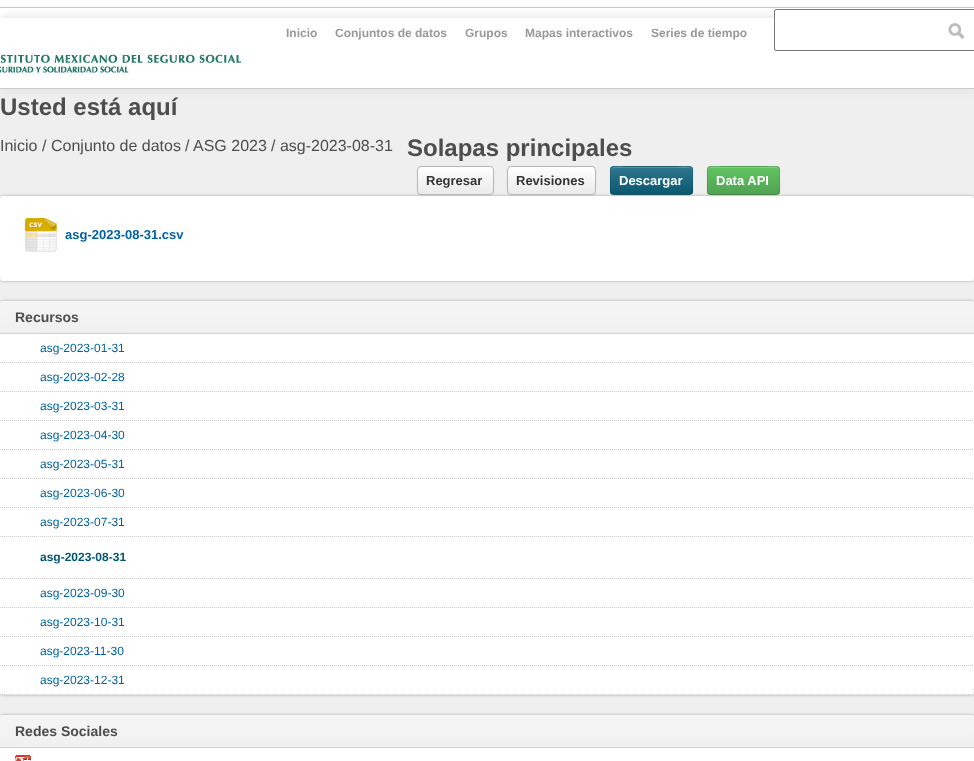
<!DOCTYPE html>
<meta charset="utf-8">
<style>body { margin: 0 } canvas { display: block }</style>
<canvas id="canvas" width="974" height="761"></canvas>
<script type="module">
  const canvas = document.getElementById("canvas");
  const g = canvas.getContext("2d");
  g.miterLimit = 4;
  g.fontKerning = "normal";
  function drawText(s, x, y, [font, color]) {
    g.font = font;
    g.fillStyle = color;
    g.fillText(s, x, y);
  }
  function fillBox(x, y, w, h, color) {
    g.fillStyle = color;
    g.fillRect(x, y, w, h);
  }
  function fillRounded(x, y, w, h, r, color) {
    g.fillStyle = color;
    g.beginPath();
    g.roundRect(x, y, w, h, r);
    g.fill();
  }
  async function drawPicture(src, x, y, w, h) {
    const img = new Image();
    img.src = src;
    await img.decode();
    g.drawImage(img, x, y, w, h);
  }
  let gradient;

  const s1 = ["bold 12px Liberation Sans", "#999999"];
  const s2 = ["bold 24px Liberation Sans", "#4D4D4D"];
  const s3 = ["16px Liberation Sans", "#4D4D4D"];
  const s4 = ["bold 13px Liberation Sans", "#333333"];
  const s5 = ["bold 13px Liberation Sans", "#FFFFFF"];
  const s6 = ["bold 13px Liberation Sans", "#0062A0"];
  const s7 = ["bold 14px Liberation Sans", "#4D4D4D"];
  const s8 = ["12px Liberation Sans", "#0062A0"];
  const s9 = ["bold 12px Liberation Sans", "#005772"];

  fillBox(0, 0, 974, 761, "#FFFFFF");
  fillBox(0, 89, 974, 629, "#EFEFEF");
  g.fillStyle = "#DDDDDD";
  g.filter = "blur(5px)";
  g.beginPath();
  g.rect(0, 18, 974, 71);
  g.fill();
  g.filter = "none";
  fillBox(0, 18, 974, 70, "#FFFFFF");
  fillBox(0, 88, 974, 1, "#CCCCCC");
  drawText("Inicio", 286, 37, s1);
  drawText("Conjuntos de datos", 335, 37, s1);
  drawText("Grupos", 465, 37, s1);
  drawText("Mapas interactivos", 525, 37, s1);
  drawText("Series de tiempo", 651, 37, s1);
  g.fillStyle = "#FFFFFF";
  g.beginPath();
  g.roundRect(774.5, 9.5, 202, 41, 1.5);
  g.fill();
  g.strokeStyle = "#767676";
  g.stroke();
  await drawPicture("pic1.png", 948, 23, 17, 16);
  await drawPicture("pic2.png", 0, 54, 241, 19);
  drawText("Usted está aquí", 0, 115, s2);
  drawText("Inicio", 0, 151, s3);
  drawText("/", 42, 151, s3);
  drawText("Conjunto de datos", 51, 151, s3);
  drawText("/", 185, 151, s3);
  drawText("ASG 2023", 193, 151, s3);
  drawText("/ asg-2023-08-31", 271, 151, s3);
  drawText("Solapas principales", 407, 156, s2);
  g.fillStyle = "rgba(0, 0, 0, 0.3)";
  g.filter = "blur(1.5px)";
  g.beginPath();
  g.roundRect(0, 196, 974, 85, 3);
  g.fill();
  g.filter = "none";
  fillRounded(0, 196, 974, 85, 3, "#FFFFFF");
  g.fillStyle = "rgba(0, 0, 0, 0.05)";
  g.filter = "blur(1px)";
  g.beginPath();
  g.roundRect(417, 167, 77, 29, 4);
  g.fill();
  g.filter = "none";
  g.save();
  g.beginPath();
  g.roundRect(417, 166, 77, 29, 4);
  g.clip();
  gradient = g.createLinearGradient(456, 167, 456, 194);
  gradient.addColorStop(0, "#FFFFFF");
  gradient.addColorStop(1, "#EAEAEA");
  g.fillStyle = gradient;
  g.fillRect(417, 167, 77, 27);
  g.restore();
  g.beginPath();
  g.roundRect(417.5, 166.5, 76, 28, 3.5);
  g.strokeStyle = "#B7B7B7";
  g.stroke();
  drawText("Regresar", 426, 185, s4);
  g.fillStyle = "rgba(0, 0, 0, 0.05)";
  g.filter = "blur(1px)";
  g.beginPath();
  g.roundRect(507, 167, 89, 29, 4);
  g.fill();
  g.filter = "none";
  g.save();
  g.beginPath();
  g.roundRect(507, 166, 89, 29, 4);
  g.clip();
  gradient = g.createLinearGradient(552, 167, 552, 194);
  gradient.addColorStop(0, "#FFFFFF");
  gradient.addColorStop(1, "#EAEAEA");
  g.fillStyle = gradient;
  g.fillRect(507, 167, 89, 27);
  g.restore();
  g.beginPath();
  g.roundRect(507.5, 166.5, 88, 28, 3.5);
  g.stroke();
  drawText("Revisiones", 516, 185, s4);
  g.fillStyle = "rgba(0, 0, 0, 0.05)";
  g.filter = "blur(1px)";
  g.beginPath();
  g.roundRect(610, 167, 83, 29, 4);
  g.fill();
  g.filter = "none";
  fillRounded(610, 166, 83, 29, 4, "#206B82");
  g.save();
  g.beginPath();
  g.roundRect(610, 166, 83, 29, 4);
  g.clip();
  gradient = g.createLinearGradient(652, 167, 652, 194);
  gradient.addColorStop(0, "#30778D");
  gradient.addColorStop(1, "#085871");
  g.fillStyle = gradient;
  g.fillRect(610, 167, 83, 27);
  g.restore();
  g.fillStyle = "rgba(255, 255, 255, 0.2)";
  g.beginPath();
  g.moveTo(614, 168);
  g.lineTo(689, 168);
  g.bezierCurveTo(691, 168, 692, 169, 692, 171);
  g.bezierCurveTo(692, 164, 680, 167, 676, 167);
  g.lineTo(626, 167);
  g.bezierCurveTo(623, 167, 611, 164, 611, 171);
  g.bezierCurveTo(611, 169, 612, 168, 614, 168);
  g.closePath();
  g.fill();
  g.beginPath();
  g.moveTo(691.5, 193.5);
  g.lineTo(689.5, 194.5);
  g.lineTo(613.5, 194.5);
  g.lineTo(611.5, 193.5);
  g.strokeStyle = "rgba(0, 0, 0, 0.25)";
  g.stroke();
  g.beginPath();
  g.moveTo(611.5, 193.5);
  g.bezierCurveTo(609.5, 191.5, 610.5, 183, 610.5, 180.5);
  g.bezierCurveTo(610.5, 164, 608.5, 166.5, 626.5, 166.5);
  g.lineTo(676.5, 166.5);
  g.bezierCurveTo(696, 166.5, 692.5, 164.5, 692.5, 184);
  g.bezierCurveTo(692.5, 186.5, 693.5, 191.5, 691.5, 193.5);
  g.strokeStyle = "rgba(0, 0, 0, 0.1)";
  g.stroke();
  drawText("Descargar", 619, 185, s5);
  g.fillStyle = "rgba(0, 0, 0, 0.05)";
  g.filter = "blur(1px)";
  g.beginPath();
  g.roundRect(707, 167, 73, 29, 4);
  g.fill();
  g.filter = "none";
  fillRounded(707, 166, 73, 29, 4, "#5BB75B");
  g.save();
  g.beginPath();
  g.roundRect(707, 166, 73, 29, 4);
  g.clip();
  gradient = g.createLinearGradient(744, 167, 744, 194);
  gradient.addColorStop(0, "#62C462");
  gradient.addColorStop(1, "#51A351");
  g.fillStyle = gradient;
  g.fillRect(707, 167, 73, 27);
  g.restore();
  g.fillStyle = "rgba(255, 255, 255, 0.2)";
  g.beginPath();
  g.moveTo(711, 168);
  g.lineTo(776, 168);
  g.bezierCurveTo(778, 168, 779, 169, 779, 171);
  g.bezierCurveTo(779, 164, 769, 167, 765, 167);
  g.lineTo(722, 167);
  g.bezierCurveTo(718, 167, 708, 164, 708, 171);
  g.bezierCurveTo(708, 169, 709, 168, 711, 168);
  g.closePath();
  g.fill();
  g.beginPath();
  g.moveTo(778.5, 193.5);
  g.lineTo(776.5, 194.5);
  g.lineTo(710.5, 194.5);
  g.lineTo(708.5, 193.5);
  g.strokeStyle = "rgba(0, 0, 0, 0.25)";
  g.stroke();
  g.beginPath();
  g.moveTo(708.5, 193.5);
  g.bezierCurveTo(706.5, 191.5, 707.5, 183, 707.5, 180.5);
  g.bezierCurveTo(707.5, 164.5, 705.5, 166.5, 722, 166.5);
  g.lineTo(765, 166.5);
  g.bezierCurveTo(781.5, 166.5, 779.5, 164.5, 779.5, 180.5);
  g.bezierCurveTo(779.5, 183, 780.5, 191.5, 778.5, 193.5);
  g.strokeStyle = "rgba(0, 0, 0, 0.1)";
  g.stroke();
  drawText("Data API", 716, 185, s5);
  await drawPicture("pic3.png", 25, 218, 32, 34);
  drawText("asg-2023-08-31.csv", 65, 239, s6);
  fillBox(0, 7, 974, 1, "#C9C9C9");
  g.fillStyle = "rgba(0, 0, 0, 0.3)";
  g.filter = "blur(1.5px)";
  g.beginPath();
  g.roundRect(0, 301, 974, 394, 3);
  g.fill();
  g.filter = "none";
  fillRounded(0, 301, 974, 394, 3, "#FFFFFF");
  gradient = g.createLinearGradient(487, 301, 487, 333);
  gradient.addColorStop(0, "#F5F5F5");
  gradient.addColorStop(1, "#F0F0F0");
  g.fillStyle = gradient;
  g.beginPath();
  g.roundRect(0, 301, 974, 32, [3, 3, 0, 0]);
  g.fill();
  fillBox(0, 333, 974, 1, "#D0D0D0");
  drawText("Recursos", 15, 322, s7);
  g.beginPath();
  g.moveTo(0, 362.5);
  g.lineTo(974, 362.5);
  g.strokeStyle = "#CCCCCC";
  g.setLineDash([1, 1]);
  g.stroke();
  drawText("asg-2023-01-31", 40, 352, s8);
  g.beginPath();
  g.moveTo(0, 391.5);
  g.lineTo(974, 391.5);
  g.stroke();
  drawText("asg-2023-02-28", 40, 381, s8);
  g.beginPath();
  g.moveTo(0, 420.5);
  g.lineTo(974, 420.5);
  g.stroke();
  drawText("asg-2023-03-31", 40, 410, s8);
  g.beginPath();
  g.moveTo(0, 449.5);
  g.lineTo(974, 449.5);
  g.stroke();
  drawText("asg-2023-04-30", 40, 439, s8);
  g.beginPath();
  g.moveTo(0, 478.5);
  g.lineTo(974, 478.5);
  g.stroke();
  drawText("asg-2023-05-31", 40, 468, s8);
  g.beginPath();
  g.moveTo(0, 507.5);
  g.lineTo(974, 507.5);
  g.stroke();
  drawText("asg-2023-06-30", 40, 497, s8);
  g.beginPath();
  g.moveTo(0, 536.5);
  g.lineTo(974, 536.5);
  g.stroke();
  drawText("asg-2023-07-31", 40, 526, s8);
  g.beginPath();
  g.moveTo(0, 578.5);
  g.lineTo(974, 578.5);
  g.stroke();
  drawText("asg-2023-08-31", 40, 561, s9);
  g.beginPath();
  g.moveTo(0, 607.5);
  g.lineTo(974, 607.5);
  g.stroke();
  drawText("asg-2023-09-30", 40, 597, s8);
  g.beginPath();
  g.moveTo(0, 636.5);
  g.lineTo(974, 636.5);
  g.stroke();
  drawText("asg-2023-10-31", 40, 626, s8);
  g.beginPath();
  g.moveTo(0, 665.5);
  g.lineTo(974, 665.5);
  g.stroke();
  drawText("asg-2023-11-30", 40, 655, s8);
  g.beginPath();
  g.moveTo(0, 694.5);
  g.lineTo(974, 694.5);
  g.stroke();
  drawText("asg-2023-12-31", 40, 684, s8);
  g.fillStyle = "rgba(0, 0, 0, 0.3)";
  g.filter = "blur(1.5px)";
  g.beginPath();
  g.roundRect(0, 715, 974, 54, 3);
  g.fill();
  g.filter = "none";
  fillRounded(0, 715, 974, 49, 3, "#FFFFFF");
  gradient = g.createLinearGradient(487, 715, 487, 747);
  gradient.addColorStop(0, "#F5F5F5");
  gradient.addColorStop(1, "#F0F0F0");
  g.fillStyle = gradient;
  g.beginPath();
  g.roundRect(0, 715, 974, 32, [3, 3, 0, 0]);
  g.fill();
  fillBox(0, 747, 974, 1, "#D0D0D0");
  drawText("Redes Sociales", 15, 736, s7);
  await drawPicture("pic4.png", 15, 755, 16, 6);
</script>
